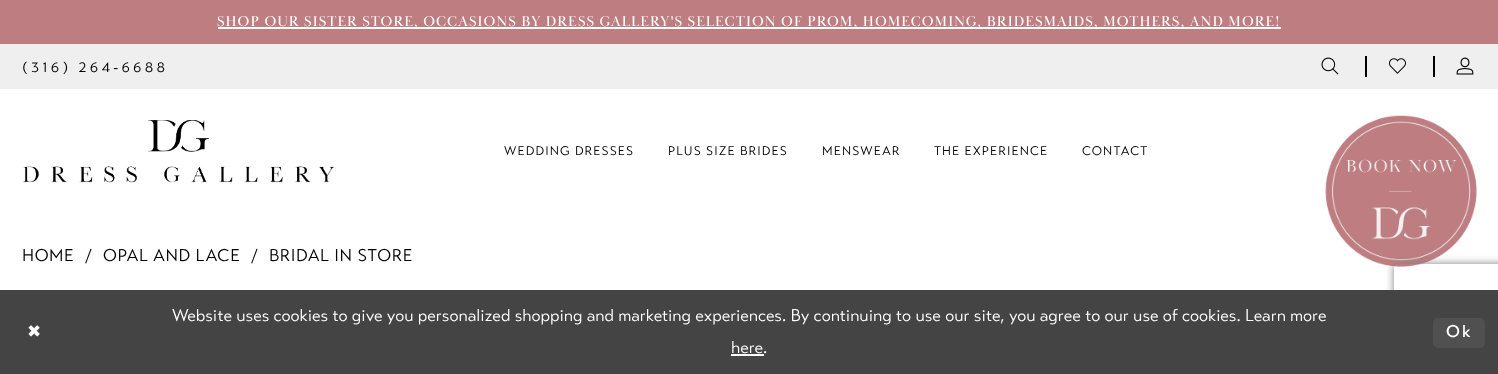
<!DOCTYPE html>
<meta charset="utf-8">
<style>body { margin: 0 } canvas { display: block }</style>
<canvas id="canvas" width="1498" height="374"></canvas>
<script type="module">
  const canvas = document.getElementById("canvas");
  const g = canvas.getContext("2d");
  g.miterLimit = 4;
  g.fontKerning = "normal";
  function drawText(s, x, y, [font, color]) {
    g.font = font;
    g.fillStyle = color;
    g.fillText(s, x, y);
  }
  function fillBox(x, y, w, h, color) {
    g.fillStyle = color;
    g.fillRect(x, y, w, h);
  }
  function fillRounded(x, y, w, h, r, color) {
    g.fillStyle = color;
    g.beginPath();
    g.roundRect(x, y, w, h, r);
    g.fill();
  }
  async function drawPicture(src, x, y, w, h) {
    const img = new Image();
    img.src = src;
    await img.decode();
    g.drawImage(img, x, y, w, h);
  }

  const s1 = ["14.7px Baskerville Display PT", "#FFFFFF"];
  const s2 = ["14.7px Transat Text", "#000000"];
  const s3 = ["12.5px Transat Text", "#000000"];
  const s4 = ["16.97px Transat Text", "#000000"];
  const s5 = ["16.97px DejaVu Sans", "#FFFFFF"];
  const s6 = ["16.97px Transat Text", "#FFFFFF"];
  const s7 = ["500 16.97px Transat Text", "#FFFFFF"];

  fillBox(0, 0, 1498, 374, "#FFFFFF");
  fillBox(0, 0, 1498, 44, "#BE7E81");
  fillBox(218, 27, 1063, 2, "#FFFFFF");
  g.letterSpacing = "1.05px";
  drawText("SHOP OUR SISTER STORE, OCCASIONS BY DRESS GALLERY'S SELECTION OF PROM, HOMECOMING, BRIDESMAIDS, MOTHERS, AND MORE!", 217, 26, s1);
  fillBox(0, 44, 1498, 45, "#EFEFEF");
  g.letterSpacing = "3.2px";
  drawText("(316) 264‑6688", 22, 72, s2);
  await drawPicture("pic1.png", 1321, 57, 18, 18);
  fillBox(1365, 56, 2, 21, "#000000");
  await drawPicture("pic2.png", 1389, 58, 17, 16);
  fillBox(1433, 56, 2, 21, "#000000");
  await drawPicture("pic3.png", 1456, 57, 18, 18);
  await drawPicture("pic4.png", 23, 120, 311, 63);
  g.letterSpacing = "1.1px";
  drawText("WEDDING DRESSES", 504, 155, s3);
  drawText("PLUS SIZE BRIDES", 668, 155, s3);
  drawText("MENSWEAR", 822, 155, s3);
  drawText("THE EXPERIENCE", 934, 155, s3);
  drawText("CONTACT", 1082, 155, s3);
  await drawPicture("pic5.png", 1325, 115, 152, 152);
  g.letterSpacing = "0.6px";
  drawText("HOME", 22, 261, s4);
  drawText("/", 85, 261, s4);
  drawText("OPAL AND LACE", 103, 261, s4);
  drawText("/", 251, 261, s4);
  drawText("BRIDAL IN STORE", 269, 261, s4);
  g.save();
  g.beginPath();
  g.moveTo(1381, 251);
  g.lineTo(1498, 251);
  g.lineTo(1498, 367);
  g.lineTo(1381, 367);
  g.closePath();
  g.moveTo(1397, 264);
  g.lineTo(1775, 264);
  g.bezierCurveTo(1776.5, 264, 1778, 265.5, 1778, 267);
  g.lineTo(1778, 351);
  g.bezierCurveTo(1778, 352.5, 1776.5, 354, 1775, 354);
  g.lineTo(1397, 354);
  g.bezierCurveTo(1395.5, 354, 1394, 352.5, 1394, 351);
  g.lineTo(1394, 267);
  g.bezierCurveTo(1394, 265.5, 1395.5, 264, 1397, 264);
  g.closePath();
  g.clip("evenodd");
  g.fillStyle = "#808080";
  g.filter = "blur(4px)";
  g.beginPath();
  g.roundRect(1394, 264, 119, 90, 3);
  g.fill();
  g.filter = "none";
  g.restore();
  fillBox(0, 290, 1498, 84, "#444444");
  g.letterSpacing = "2px";
  drawText("✖", 27, 337, s5);
  g.letterSpacing = "0px";
  drawText("Website uses cookies to give you personalized shopping and marketing experiences. By continuing to use our site, you agree to our use of cookies. Learn more", 172, 321, s6);
  drawText("here.", 731, 353, s6);
  fillBox(731, 354, 33, 2, "#FFFFFF");
  fillRounded(1433, 318, 52, 30, 5, "#505050");
  g.letterSpacing = "2px";
  drawText("Ok", 1446, 337, s7);
</script>
